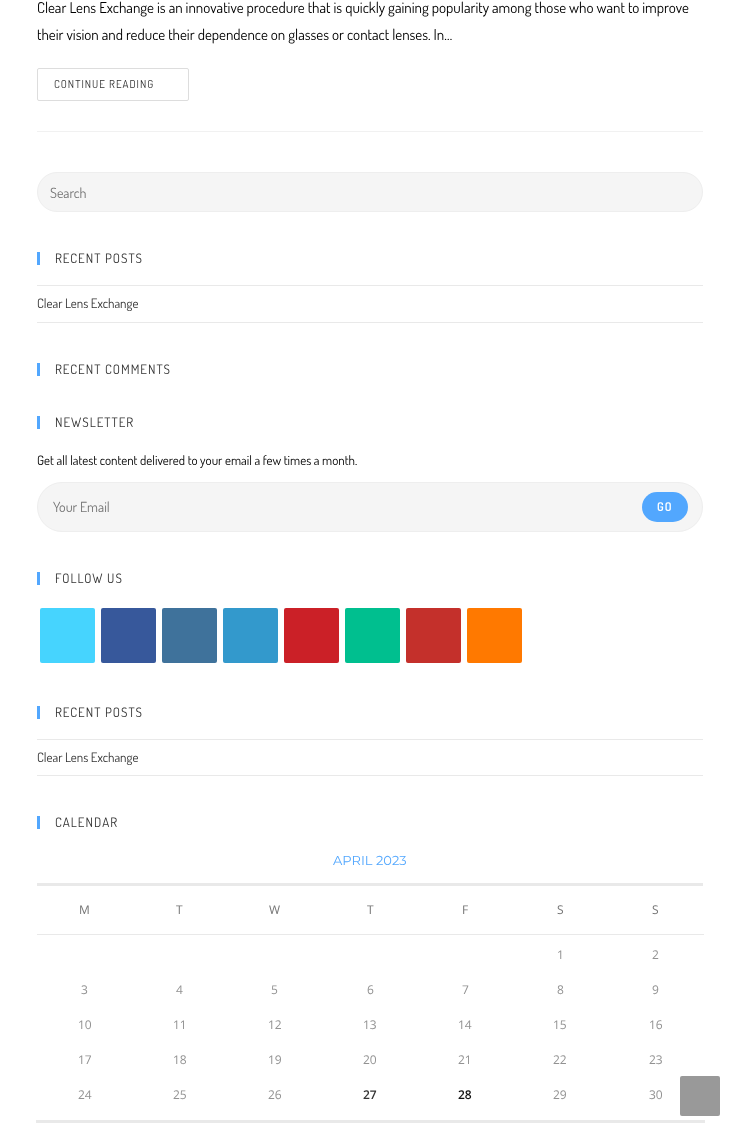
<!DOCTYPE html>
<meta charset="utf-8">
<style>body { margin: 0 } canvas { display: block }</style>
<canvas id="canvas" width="740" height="1136"></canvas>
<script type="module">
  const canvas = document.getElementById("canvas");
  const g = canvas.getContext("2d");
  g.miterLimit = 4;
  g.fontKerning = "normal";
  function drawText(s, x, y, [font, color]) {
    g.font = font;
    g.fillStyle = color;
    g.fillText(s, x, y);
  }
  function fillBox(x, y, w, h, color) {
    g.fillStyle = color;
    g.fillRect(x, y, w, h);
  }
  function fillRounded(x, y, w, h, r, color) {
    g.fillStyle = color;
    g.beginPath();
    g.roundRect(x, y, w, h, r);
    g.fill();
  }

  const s1 = ["15px Dosis", "#000000"];
  const s2 = ["11px Dosis", "#333333"];
  const s3 = ["14px Dosis", "#757575"];
  const s4 = ["13px Dosis", "#333333"];
  const s5 = ["13px Dosis", "#000000"];
  const s6 = ["600 12px Dosis", "#FFFFFF"];
  const s7 = ["13px Montserrat", "#52A7FE"];
  const s8 = ["12px Open Sans", "#757575"];
  const s9 = ["12px Open Sans", "#929292"];
  const s10 = ["600 12px Open Sans", "#333333"];
  const s11 = ["600 12px Open Sans", "#111111"];

  fillBox(0, 0, 740, 1136, "#FFFFFF");
  fillBox(37, 131, 666, 1, "#F1F1F1");
  drawText("Clear Lens Exchange is an innovative procedure that is quickly gaining popularity among those who want to improve", 37, 13, s1);
  drawText("their vision and reduce their dependence on glasses or contact lenses. In…", 37, 40, s1);
  g.beginPath();
  g.roundRect(37.5, 68.5, 151, 32, 1.5);
  g.strokeStyle = "#DDDDDD";
  g.stroke();
  g.letterSpacing = "1px";
  drawText("CONTINUE READING", 54, 88, s2);
  g.fillStyle = "#F5F5F5";
  g.beginPath();
  g.roundRect(37.5, 172.5, 665, 39, 19.5);
  g.fill();
  g.strokeStyle = "#EEEEEE";
  g.stroke();
  g.letterSpacing = "0px";
  drawText("Search", 50, 198, s3);
  fillBox(37, 252, 3, 13, "#52A7FE");
  g.letterSpacing = "1px";
  drawText("RECENT POSTS", 55, 263, s4);
  fillBox(37, 285, 666, 1, "#E9E9E9");
  fillBox(37, 322, 666, 1, "#E9E9E9");
  g.letterSpacing = "0px";
  drawText("Clear Lens Exchange", 37, 308, s4);
  fillBox(37, 363, 3, 13, "#52A7FE");
  g.letterSpacing = "1px";
  drawText("RECENT COMMENTS", 55, 374, s4);
  fillBox(37, 416, 3, 13, "#52A7FE");
  drawText("NEWSLETTER", 55, 427, s4);
  g.letterSpacing = "0px";
  drawText("Get all latest content delivered to your email a few times a month.", 37, 465, s5);
  g.fillStyle = "#F5F5F5";
  g.beginPath();
  g.roundRect(37.5, 482.5, 665, 49, 24.5);
  g.fill();
  g.stroke();
  drawText("Your Email", 53, 512, s3);
  fillRounded(642, 492, 46, 30, 15, "#52A7FE");
  g.letterSpacing = "1px";
  drawText("GO", 657, 511, s6);
  fillBox(37, 572, 3, 13, "#52A7FE");
  drawText("FOLLOW US", 55, 583, s4);
  fillRounded(40, 608, 55, 55, 2, "#46D4FE");
  fillRounded(101, 608, 55, 55, 2, "#37589B");
  fillRounded(162, 608, 55, 55, 2, "#3F729B");
  fillRounded(223, 608, 55, 55, 2, "#3399CC");
  fillRounded(284, 608, 55, 55, 2, "#CB2027");
  fillRounded(345, 608, 55, 55, 2, "#00BF8F");
  fillRounded(406, 608, 55, 55, 2, "#C4302B");
  fillRounded(467, 608, 55, 55, 2, "#FF7900");
  fillBox(37, 706, 3, 13, "#52A7FE");
  drawText("RECENT POSTS", 55, 717, s4);
  fillBox(37, 739, 666, 1, "#E9E9E9");
  fillBox(37, 775, 666, 1, "#E9E9E9");
  g.letterSpacing = "0px";
  drawText("Clear Lens Exchange", 37, 762, s4);
  fillBox(37, 816, 3, 13, "#52A7FE");
  g.letterSpacing = "1px";
  drawText("CALENDAR", 55, 827, s4);
  fillBox(37, 883, 666, 3, "#E9E9E9");
  g.letterSpacing = "0px";
  drawText("APRIL 2023", 333, 865, s7);
  drawText("M", 79, 914, s8);
  drawText("T", 176, 914, s8);
  drawText("W", 269, 914, s8);
  drawText("T", 367, 914, s8);
  drawText("F", 462, 914, s8);
  drawText("S", 557, 914, s8);
  fillBox(37, 934, 667, 1, "#E9E9E9");
  drawText("S", 652, 914, s8);
  fillBox(36, 1120, 669, 3, "#E9E9E9");
  drawText("1", 557, 959, s9);
  drawText("2", 652, 959, s9);
  drawText("3", 81, 994, s9);
  drawText("4", 176, 994, s9);
  drawText("5", 271, 994, s9);
  drawText("6", 367, 994, s9);
  drawText("7", 462, 994, s9);
  drawText("8", 557, 994, s9);
  drawText("9", 652, 994, s9);
  drawText("10", 78, 1029, s9);
  drawText("11", 173, 1029, s9);
  drawText("12", 268, 1029, s9);
  drawText("13", 363, 1029, s9);
  drawText("14", 458, 1029, s9);
  drawText("15", 553, 1029, s9);
  drawText("16", 649, 1029, s9);
  drawText("17", 78, 1064, s9);
  drawText("18", 173, 1064, s9);
  drawText("19", 268, 1064, s9);
  drawText("20", 363, 1064, s9);
  drawText("21", 458, 1064, s9);
  drawText("22", 553, 1064, s9);
  drawText("23", 649, 1064, s9);
  drawText("24", 78, 1099, s9);
  drawText("25", 173, 1099, s9);
  drawText("26", 268, 1099, s9);
  drawText("27", 363, 1099, s10);
  drawText("28", 458, 1099, s11);
  drawText("29", 553, 1099, s9);
  drawText("30", 649, 1099, s9);
  fillRounded(680, 1076, 40, 40, 2, "#999999");
</script>
